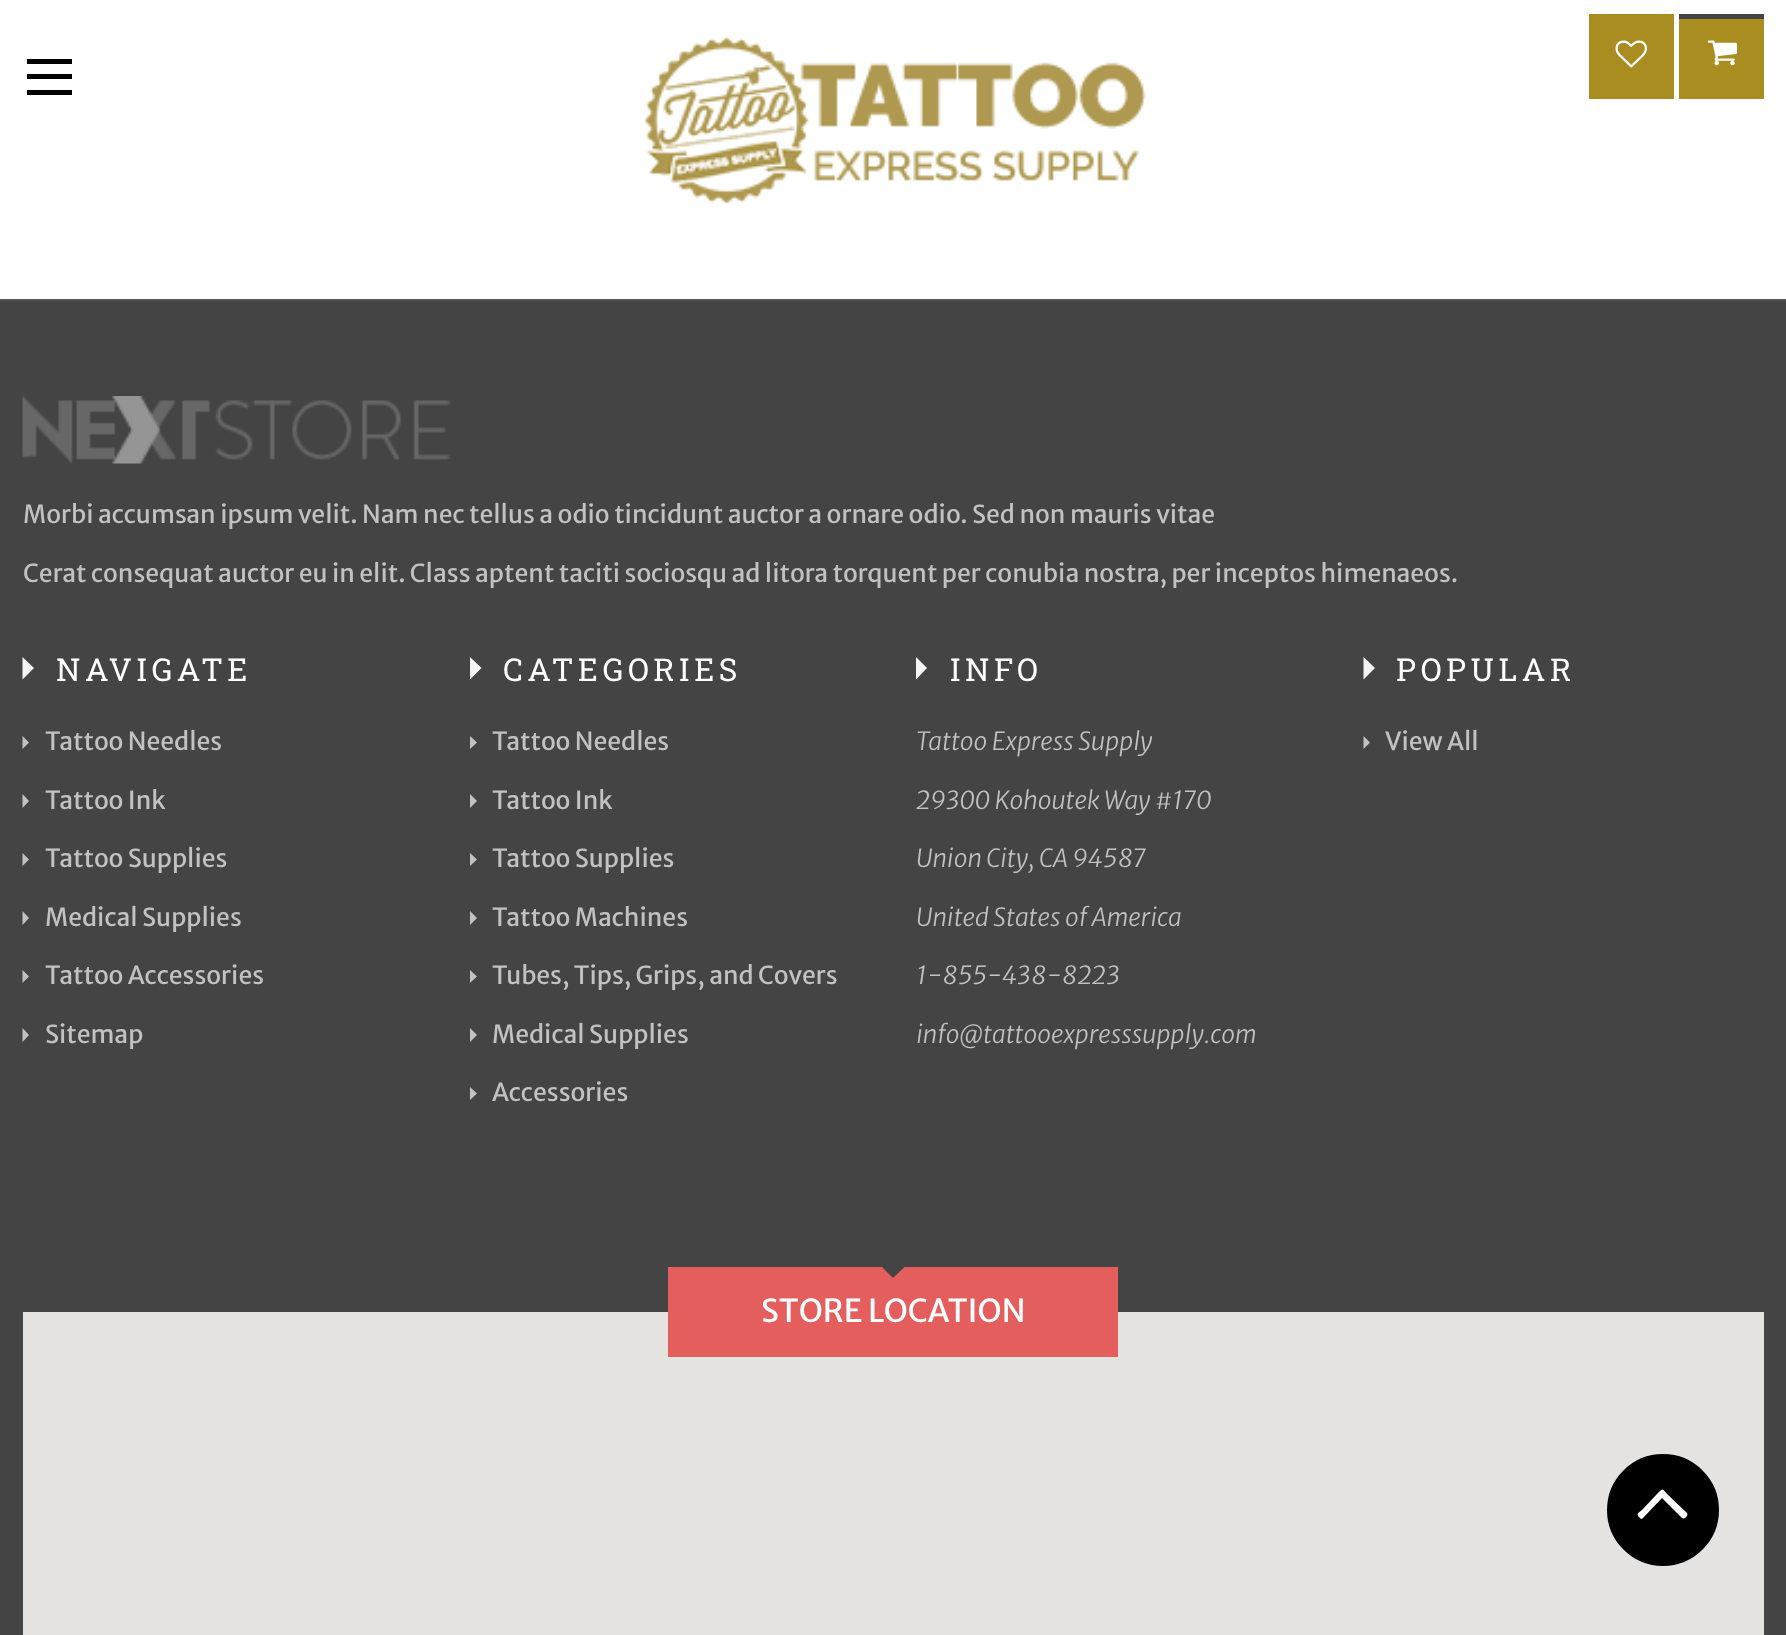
<!DOCTYPE html>
<meta charset="utf-8">
<style>body { margin: 0 } canvas { display: block }</style>
<canvas id="canvas" width="1786" height="1635"></canvas>
<script type="module">
  const canvas = document.getElementById("canvas");
  const g = canvas.getContext("2d");
  g.miterLimit = 4;
  g.fontKerning = "normal";
  function drawText(s, x, y, [font, color]) {
    g.font = font;
    g.fillStyle = color;
    g.fillText(s, x, y);
  }
  function fillBox(x, y, w, h, color) {
    g.fillStyle = color;
    g.fillRect(x, y, w, h);
  }
  async function drawPicture(src, x, y, w, h) {
    const img = new Image();
    img.src = src;
    await img.decode();
    g.drawImage(img, x, y, w, h);
  }

  const s1 = ["24.75px Merriweather Sans", "#C2C2C2"];
  const s2 = ["31.5px Roboto Slab", "#FFFFFF"];
  const s3 = ["italic 300 24.75px Merriweather Sans", "#C2C2C2"];
  const s4 = ["31.5px Merriweather Sans", "#FFFFFF"];

  fillBox(0, 0, 1786, 1635, "#FFFFFF");
  fillBox(27, 74, 45, 5, "#000000");
  fillBox(27, 59, 45, 5, "#000000");
  fillBox(27, 90, 45, 5, "#000000");
  await drawPicture("pic1.png", 645, 37, 501, 167);
  fillBox(1589, 14, 85, 85, "#AA8D21");
  await drawPicture("pic2.png", 1615, 40, 32, 28);
  fillBox(1679, 19, 85, 80, "#AA8D21");
  fillBox(1679, 14, 85, 5, "#444444");
  await drawPicture("pic3.png", 1707, 40, 30, 26);
  fillBox(0, 301, 1786, 1334, "#444444");
  fillBox(0, 299, 1786, 2, "#535353");
  await drawPicture("pic4.png", 22, 396, 428, 68);
  drawText("Morbi accumsan ipsum velit. Nam nec tellus a odio tincidunt auctor a ornare odio. Sed non mauris vitae", 23, 523, s1);
  drawText("Cerat consequat auctor eu in elit. Class aptent taciti sociosqu ad litora torquent per conubia nostra, per inceptos himenaeos.", 23, 582, s1);
  g.fillStyle = "#F5F5F5";
  g.beginPath();
  g.moveTo(22.5, 679.5);
  g.lineTo(22.5, 657);
  g.lineTo(34, 668);
  g.closePath();
  g.fill();
  g.letterSpacing = "4.5px";
  drawText("NAVIGATE", 56, 681, s2);
  g.fillStyle = "#C2C2C2";
  g.beginPath();
  g.moveTo(22.5, 749);
  g.lineTo(22.5, 736);
  g.lineTo(29, 742.5);
  g.closePath();
  g.fill();
  g.letterSpacing = "0px";
  drawText("Tattoo Needles", 45, 750, s1);
  g.beginPath();
  g.moveTo(22.5, 808);
  g.lineTo(22.5, 794);
  g.lineTo(29, 801);
  g.closePath();
  g.fill();
  drawText("Tattoo Ink", 45, 809, s1);
  g.beginPath();
  g.moveTo(22.5, 866);
  g.lineTo(22.5, 853);
  g.lineTo(29, 859.5);
  g.closePath();
  g.fill();
  drawText("Tattoo Supplies", 45, 867, s1);
  g.beginPath();
  g.moveTo(22.5, 925);
  g.lineTo(22.5, 911);
  g.lineTo(29, 918);
  g.closePath();
  g.fill();
  drawText("Medical Supplies", 45, 926, s1);
  g.beginPath();
  g.moveTo(22.5, 983);
  g.lineTo(22.5, 970);
  g.lineTo(29, 976.5);
  g.closePath();
  g.fill();
  drawText("Tattoo Accessories", 45, 984, s1);
  g.beginPath();
  g.moveTo(22.5, 1042);
  g.lineTo(22.5, 1028);
  g.lineTo(29, 1035);
  g.closePath();
  g.fill();
  drawText("Sitemap", 45, 1043, s1);
  g.fillStyle = "#F5F5F5";
  g.beginPath();
  g.moveTo(470, 679.5);
  g.lineTo(470, 657);
  g.lineTo(481.5, 668);
  g.closePath();
  g.fill();
  g.letterSpacing = "4.5px";
  drawText("CATEGORIES", 503, 681, s2);
  g.fillStyle = "#C2C2C2";
  g.beginPath();
  g.moveTo(470, 749);
  g.lineTo(470, 736);
  g.lineTo(477, 742.5);
  g.closePath();
  g.fill();
  g.letterSpacing = "0px";
  drawText("Tattoo Needles", 492, 750, s1);
  g.beginPath();
  g.moveTo(470, 808);
  g.lineTo(470, 794);
  g.lineTo(477, 801);
  g.closePath();
  g.fill();
  drawText("Tattoo Ink", 492, 809, s1);
  g.beginPath();
  g.moveTo(470, 866);
  g.lineTo(470, 853);
  g.lineTo(477, 859.5);
  g.closePath();
  g.fill();
  drawText("Tattoo Supplies", 492, 867, s1);
  g.beginPath();
  g.moveTo(470, 925);
  g.lineTo(470, 911);
  g.lineTo(477, 918);
  g.closePath();
  g.fill();
  drawText("Tattoo Machines", 492, 926, s1);
  g.beginPath();
  g.moveTo(470, 983);
  g.lineTo(470, 970);
  g.lineTo(477, 976.5);
  g.closePath();
  g.fill();
  drawText("Tubes, Tips, Grips, and Covers", 492, 984, s1);
  g.beginPath();
  g.moveTo(470, 1042);
  g.lineTo(470, 1028);
  g.lineTo(477, 1035);
  g.closePath();
  g.fill();
  drawText("Medical Supplies", 492, 1043, s1);
  g.beginPath();
  g.moveTo(470, 1100);
  g.lineTo(470, 1087);
  g.lineTo(477, 1093.5);
  g.closePath();
  g.fill();
  drawText("Accessories", 492, 1101, s1);
  g.fillStyle = "#F5F5F5";
  g.beginPath();
  g.moveTo(916, 679.5);
  g.lineTo(916, 657);
  g.lineTo(927, 668);
  g.closePath();
  g.fill();
  g.letterSpacing = "4.5px";
  drawText("INFO", 950, 681, s2);
  g.letterSpacing = "0px";
  drawText("Tattoo Express Supply", 916, 750, s3);
  drawText("29300 Kohoutek Way #170", 916, 809, s3);
  drawText("Union City, CA 94587", 916, 867, s3);
  drawText("United States of America", 916, 926, s3);
  drawText("1-855-438-8223", 916, 984, s3);
  drawText("info@tattooexpresssupply.com", 916, 1043, s3);
  g.fillStyle = "#F5F5F5";
  g.beginPath();
  g.moveTo(1363.5, 679.5);
  g.lineTo(1363.5, 657);
  g.lineTo(1375, 668);
  g.closePath();
  g.fill();
  g.letterSpacing = "4.5px";
  drawText("POPULAR", 1396, 681, s2);
  g.fillStyle = "#C2C2C2";
  g.beginPath();
  g.moveTo(1363.5, 749);
  g.lineTo(1363.5, 736);
  g.lineTo(1370, 742.5);
  g.closePath();
  g.fill();
  g.letterSpacing = "0px";
  drawText("View All", 1385, 750, s1);
  fillBox(23, 1312, 1741, 323, "#E5E3DF");
  fillBox(668, 1267, 450, 90, "#E55E5E");
  g.fillStyle = "#444444";
  g.beginPath();
  g.moveTo(882, 1267);
  g.lineTo(904.5, 1267);
  g.lineTo(893, 1278);
  g.closePath();
  g.fill();
  drawText("STORE LOCATION", 761, 1322, s4);
  g.fillStyle = "#000000";
  g.beginPath();
  g.arc(1663, 1510, 55, 0, Math.PI * 2);
  g.fill();
  g.strokeStyle = "#000000";
  g.lineWidth = 2;
  g.stroke();
  g.fillStyle = "#FFFFFF";
  g.beginPath();
  g.moveTo(1687, 1513);
  g.bezierCurveTo(1688, 1515, 1687, 1516, 1686, 1517);
  g.bezierCurveTo(1683, 1520, 1682, 1518, 1679, 1515);
  g.lineTo(1662, 1498);
  g.lineTo(1642, 1519);
  g.bezierCurveTo(1641, 1519, 1640, 1518, 1639, 1517);
  g.bezierCurveTo(1636, 1514, 1638, 1513, 1642, 1510);
  g.lineTo(1657, 1494);
  g.bezierCurveTo(1663, 1488, 1662, 1488, 1667, 1494);
  g.closePath();
  g.fill();
</script>
